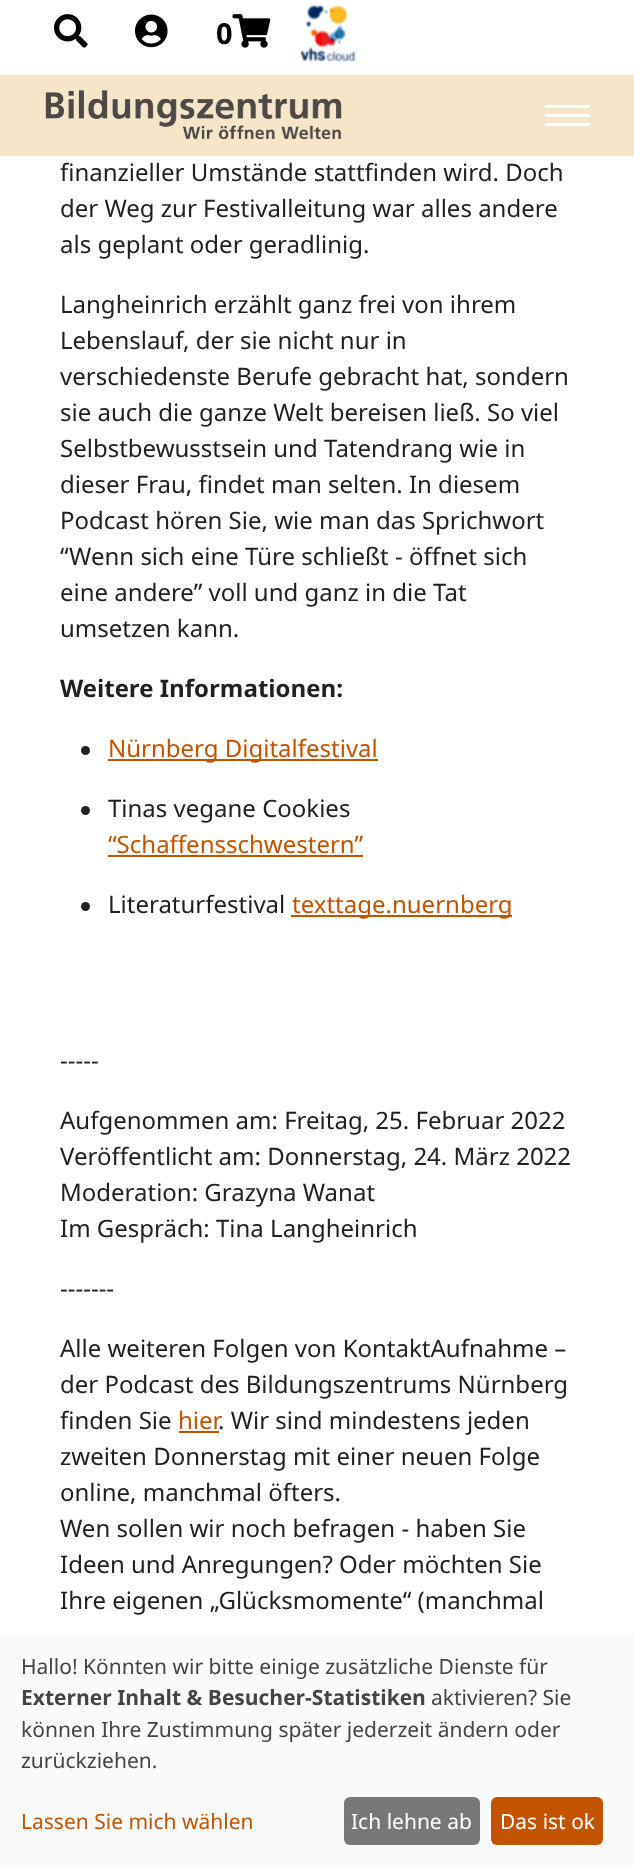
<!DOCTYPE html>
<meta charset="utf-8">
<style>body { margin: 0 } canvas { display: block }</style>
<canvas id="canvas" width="634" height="1865"></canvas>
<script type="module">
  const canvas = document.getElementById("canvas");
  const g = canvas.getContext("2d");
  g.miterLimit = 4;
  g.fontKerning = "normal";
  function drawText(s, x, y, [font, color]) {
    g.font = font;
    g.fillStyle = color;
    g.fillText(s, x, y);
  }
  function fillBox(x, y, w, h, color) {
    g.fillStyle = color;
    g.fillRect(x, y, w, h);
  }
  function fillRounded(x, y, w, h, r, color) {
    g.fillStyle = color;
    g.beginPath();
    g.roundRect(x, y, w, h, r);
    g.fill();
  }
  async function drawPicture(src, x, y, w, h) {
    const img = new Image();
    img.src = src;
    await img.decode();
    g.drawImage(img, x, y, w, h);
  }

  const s1 = ["bold 29px Noto Sans", "#000000"];
  const s2 = ["24px Noto Sans", "#212121"];
  const s3 = ["bold 24px Noto Sans", "#212121"];
  const s4 = ["24px Noto Sans", "#C25400"];
  const s5 = ["21px Noto Sans", "#444444"];
  const s6 = ["bold 21px Noto Sans", "#444444"];
  const s7 = ["21px Noto Sans", "#C25400"];
  const s8 = ["21px Noto Sans", "#FFFFFF"];

  fillBox(0, 0, 634, 1865, "#FFFFFF");
  await drawPicture("pic1.png", 54, 14, 34, 34);
  await drawPicture("pic2.png", 135, 14, 33, 34);
  drawText("0", 216, 44, s1);
  await drawPicture("pic3.png", 232, 14, 39, 34);
  await drawPicture("pic4.png", 299, 4, 57, 58);
  fillBox(0, 75, 634, 81, "#F5E6CA");
  await drawPicture("pic5.png", 45, 90, 297, 50);
  fillBox(545, 114, 45, 3, "#FFFFFF");
  fillBox(545, 105, 45, 3, "#FFFFFF");
  fillBox(545, 123, 45, 3, "#FFFFFF");
  drawText("finanzieller Umstände stattfinden wird. Doch", 60, 181, s2);
  drawText("der Weg zur Festivalleitung war alles andere", 60, 217, s2);
  drawText("als geplant oder geradlinig.", 60, 253, s2);
  drawText("Langheinrich erzählt ganz frei von ihrem", 60, 313, s2);
  drawText("Lebenslauf, der sie nicht nur in", 60, 349, s2);
  drawText("verschiedenste Berufe gebracht hat, sondern", 60, 385, s2);
  drawText("sie auch die ganze Welt bereisen ließ. So viel", 60, 421, s2);
  drawText("Selbstbewusstsein und Tatendrang wie in", 60, 457, s2);
  drawText("dieser Frau, findet man selten. In diesem", 60, 493, s2);
  drawText("Podcast hören Sie, wie man das Sprichwort", 60, 529, s2);
  drawText("“Wenn sich eine Türe schließt - öffnet sich", 60, 565, s2);
  drawText("eine andere” voll und ganz in die Tat", 60, 601, s2);
  drawText("umsetzen kann.", 60, 637, s2);
  drawText("Weitere Informationen:", 60, 697, s3);
  g.beginPath();
  g.arc(85.5, 750.5, 4.5, 0, Math.PI * 2);
  g.fill();
  fillBox(108, 759, 270, 2, "#C25400");
  drawText("Nürnberg Digitalfestival", 108, 757, s4);
  g.fillStyle = "#212121";
  g.beginPath();
  g.arc(85.5, 810.5, 4.5, 0, Math.PI * 2);
  g.fill();
  drawText("Tinas vegane Cookies", 108, 817, s2);
  drawText("“Schaffensschwestern”", 108, 853, s4);
  fillBox(108, 855, 255, 2, "#C25400");
  g.fillStyle = "#212121";
  g.beginPath();
  g.arc(85.5, 906.5, 4.5, 0, Math.PI * 2);
  g.fill();
  drawText("Literaturfestival", 108, 913, s2);
  fillBox(291, 915, 221, 2, "#C25400");
  drawText("texttage.nuernberg", 292, 913, s4);
  drawText("-----", 60, 1069, s2);
  drawText("Aufgenommen am: Freitag, 25. Februar 2022", 60, 1129, s2);
  drawText("Veröffentlicht am: Donnerstag, 24. März 2022", 60, 1165, s2);
  drawText("Moderation: Grazyna Wanat", 60, 1201, s2);
  drawText("Im Gespräch: Tina Langheinrich", 60, 1237, s2);
  drawText("-------", 60, 1297, s2);
  drawText("Alle weiteren Folgen von KontaktAufnahme –", 60, 1357, s2);
  drawText("der Podcast des Bildungszentrums Nürnberg", 60, 1393, s2);
  drawText("finden Sie", 60, 1429, s2);
  drawText("hier", 178, 1429, s4);
  fillBox(179, 1431, 40, 2, "#C25400");
  drawText(". Wir sind mindestens jeden", 218, 1429, s2);
  drawText("zweiten Donnerstag mit einer neuen Folge", 60, 1465, s2);
  drawText("online, manchmal öfters.", 60, 1501, s2);
  drawText("Wen sollen wir noch befragen - haben Sie", 60, 1537, s2);
  drawText("Ideen und Anregungen? Oder möchten Sie", 60, 1573, s2);
  drawText("Ihre eigenen „Glücksmomente“ (manchmal", 60, 1609, s2);
  fillBox(0, 1635, 634, 230, "#FAFAFA");
  drawText("Hallo! Könnten wir bitte einige zusätzliche Dienste für", 21, 1674, s5);
  drawText("Externer Inhalt & Besucher-Statistiken", 21, 1705, s6);
  drawText("aktivieren? Sie", 431, 1705, s5);
  drawText("können Ihre Zustimmung später jederzeit ändern oder", 21, 1737, s5);
  drawText("zurückziehen.", 21, 1768, s5);
  drawText("Lassen Sie mich wählen", 21, 1829, s7);
  fillRounded(344, 1797, 136, 48, 6, "#777777");
  drawText("Ich lehne ab", 351, 1829, s8);
  fillRounded(491, 1797, 112, 48, 6, "#C25400");
  drawText("Das ist ok", 500, 1829, s8);
</script>
